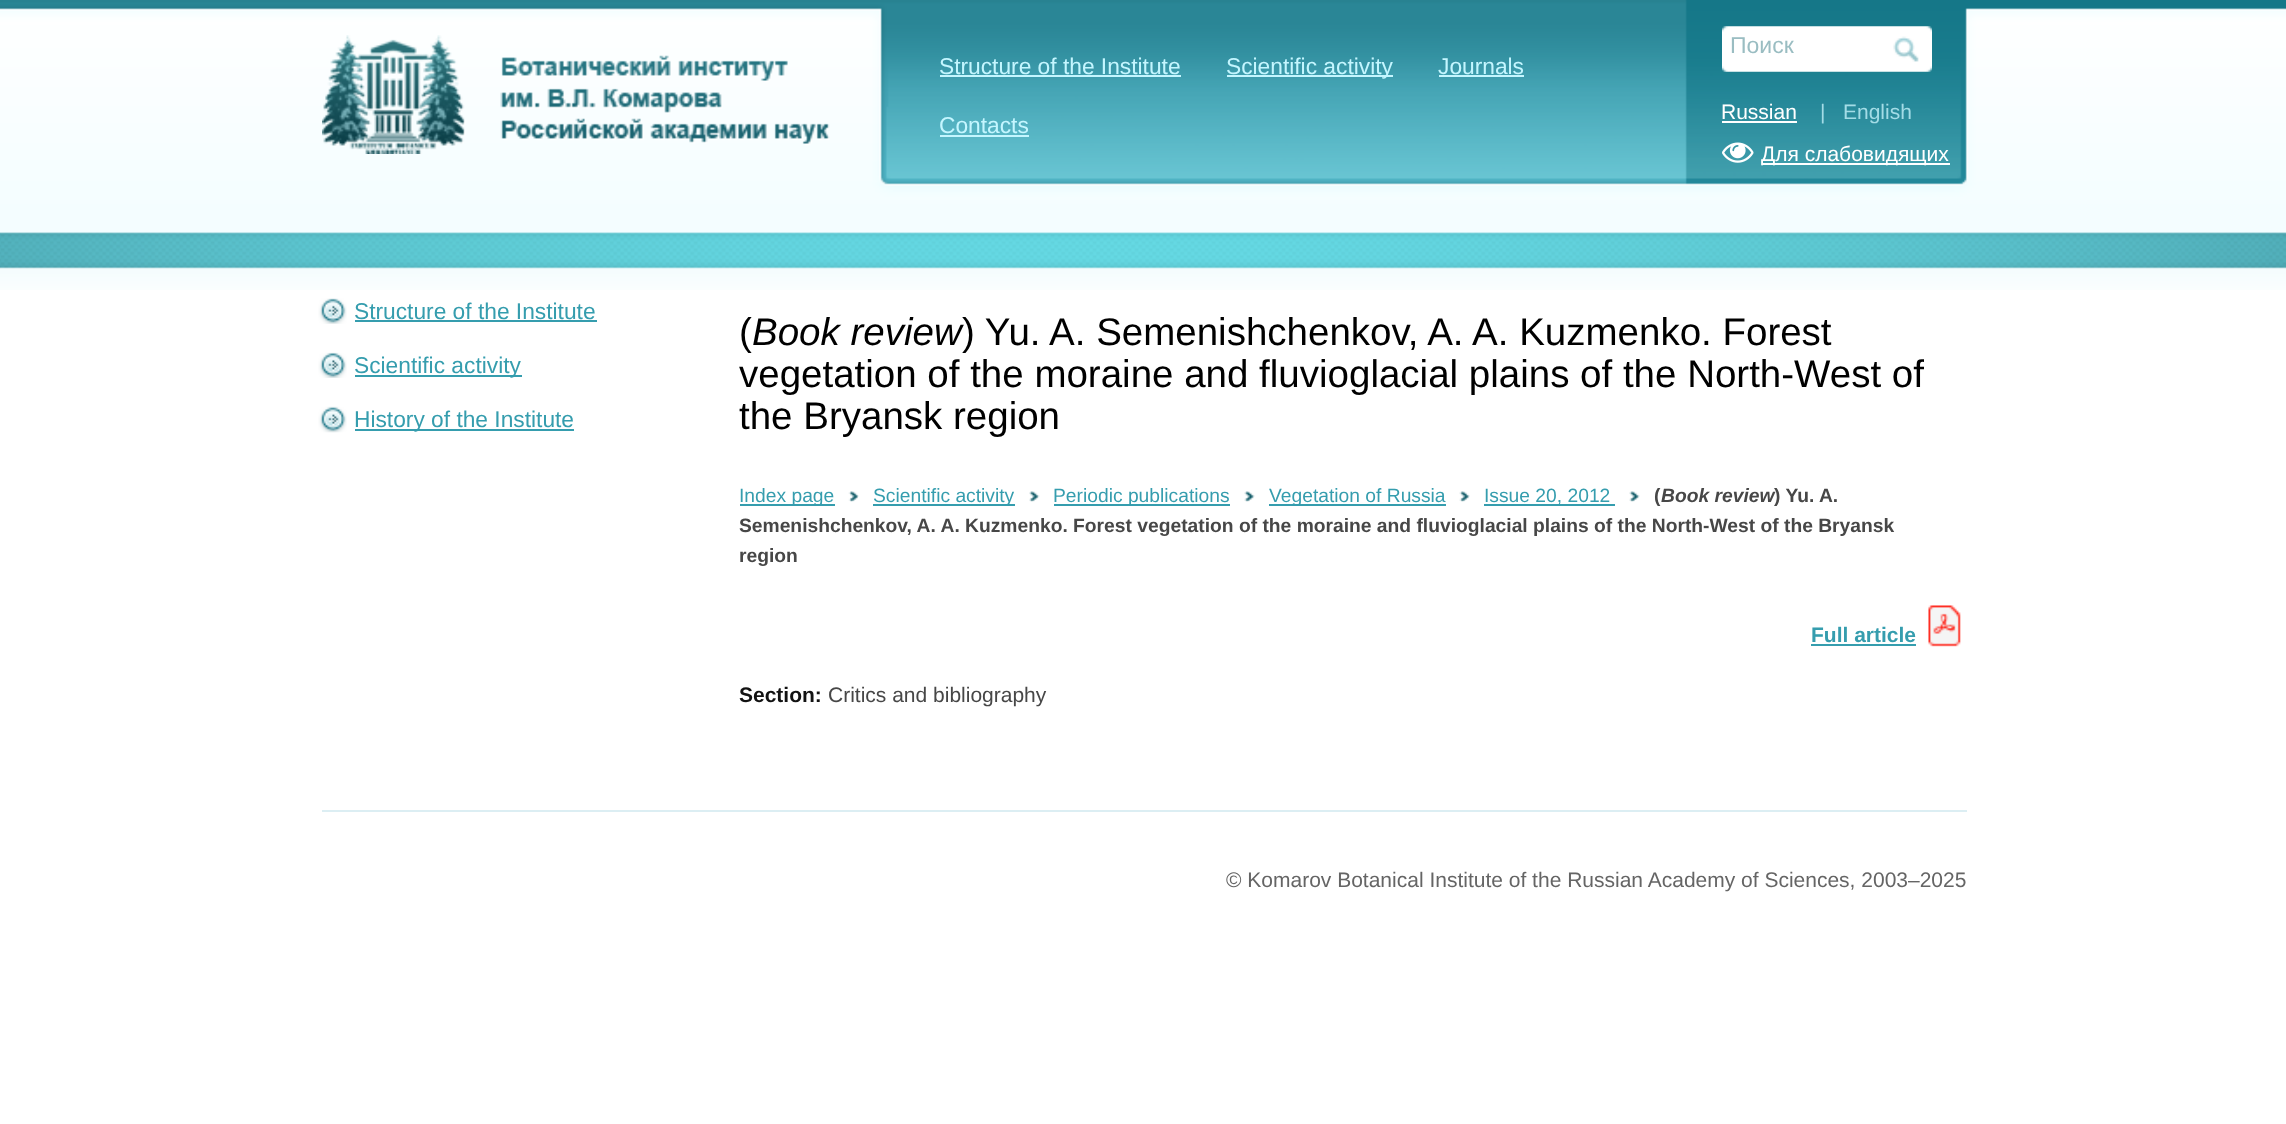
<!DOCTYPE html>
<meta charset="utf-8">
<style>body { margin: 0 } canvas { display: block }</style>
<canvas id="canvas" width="2286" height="1124"></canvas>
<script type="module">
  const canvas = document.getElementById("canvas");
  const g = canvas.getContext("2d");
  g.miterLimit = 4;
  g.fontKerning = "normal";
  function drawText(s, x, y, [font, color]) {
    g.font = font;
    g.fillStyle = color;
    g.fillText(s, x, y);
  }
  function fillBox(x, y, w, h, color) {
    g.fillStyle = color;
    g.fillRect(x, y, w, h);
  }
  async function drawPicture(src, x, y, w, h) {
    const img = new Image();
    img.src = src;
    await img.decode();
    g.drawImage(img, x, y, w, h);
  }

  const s1 = ["22.75px Liberation Sans", "#C4F6FF"];
  const s2 = ["23px Liberation Sans", "#9ABDC2"];
  const s3 = ["21px Liberation Sans", "#FFFFFF"];
  const s4 = ["21px Liberation Sans", "#A3DCE6"];
  const s5 = ["22.75px Liberation Sans", "#359DAE"];
  const s6 = ["38.5px Liberation Sans", "#000000"];
  const s7 = ["italic 38.5px Liberation Sans", "#000000"];
  const s8 = ["19.25px Liberation Sans", "#359DAE"];
  const s9 = ["bold 19.25px Liberation Sans", "#474747"];
  const s10 = ["italic bold 19.25px Liberation Sans", "#474747"];
  const s11 = ["bold 21px Liberation Sans", "#359DAE"];
  const s12 = ["bold 21px Liberation Sans", "#121212"];
  const s13 = ["21px Liberation Sans", "#474747"];
  const s14 = ["21px Liberation Sans", "#656565"];

  fillBox(0, 0, 2286, 1124, "#FFFFFF");
  await drawPicture("pic1.png", 0, 0, 2286, 290);
  await drawPicture("pic2.png", 322, 35, 508, 119);
  drawText("Structure of the Institute", 939, 74, s1);
  fillBox(940, 75, 241, 2, "#C4F6FF");
  fillBox(1227, 75, 166, 2, "#C4F6FF");
  drawText("Scientific activity", 1226, 74, s1);
  drawText("Journals", 1438, 74, s1);
  fillBox(1439, 75, 85, 2, "#C4F6FF");
  drawText("Contacts", 939, 133, s1);
  fillBox(940, 135, 89, 2, "#C4F6FF");
  await drawPicture("pic3.png", 1722, 26, 210, 46);
  drawText("Поиск", 1730, 53, s2);
  await drawPicture("pic4.png", 1893, 36, 26, 26);
  drawText("Russian", 1721, 119, s3);
  fillBox(1722, 121, 75, 2, "#FFFFFF");
  drawText("|   English", 1820, 119, s4);
  await drawPicture("pic5.png", 1722, 142, 32, 21);
  fillBox(1762, 163, 188, 2, "#FFFFFF");
  drawText("Для слабовидящих", 1761, 161, s3);
  await drawPicture("pic6.png", 318, 298, 29, 26);
  drawText("Structure of the Institute", 354, 319, s5);
  fillBox(355, 320, 242, 2, "#359DAE");
  await drawPicture("pic7.png", 318, 352, 29, 26);
  fillBox(355, 375, 167, 2, "#359DAE");
  drawText("Scientific activity", 354, 373, s5);
  await drawPicture("pic8.png", 318, 406, 29, 27);
  fillBox(355, 429, 219, 2, "#359DAE");
  drawText("History of the Institute", 354, 427, s5);
  drawText("(", 739, 345, s6);
  drawText("Book review", 752, 345, s7);
  drawText(") Yu. A. Semenishchenkov, A. A. Kuzmenko. Forest", 962, 345, s6);
  drawText("vegetation of the moraine and fluvioglacial plains of the North-West of", 739, 387, s6);
  drawText("the Bryansk region", 739, 429, s6);
  fillBox(740, 504, 95, 2, "#359DAE");
  drawText("Index page", 739, 502, s8);
  await drawPicture("pic9.png", 848, 491, 11, 11);
  fillBox(873, 504, 142, 2, "#359DAE");
  drawText("Scientific activity", 873, 502, s8);
  await drawPicture("pic10.png", 1029, 491, 11, 11);
  fillBox(1054, 504, 176, 2, "#359DAE");
  drawText("Periodic publications", 1053, 502, s8);
  await drawPicture("pic11.png", 1244, 491, 11, 11);
  fillBox(1269, 504, 177, 2, "#359DAE");
  drawText("Vegetation of Russia", 1269, 502, s8);
  await drawPicture("pic12.png", 1459, 491, 11, 11);
  fillBox(1484, 504, 131, 2, "#359DAE");
  drawText("Issue 20, 2012", 1484, 502, s8);
  await drawPicture("pic11.png", 1629, 491, 11, 11);
  drawText("(", 1654, 502, s9);
  drawText("Book review", 1661, 502, s10);
  drawText(") Yu. A.", 1774, 502, s9);
  drawText("Semenishchenkov, A. A. Kuzmenko. Forest vegetation of the moraine and fluvioglacial plains of the North-West of the Bryansk", 739, 532, s9);
  drawText("region", 739, 562, s9);
  drawText("Full article", 1811, 642, s11);
  fillBox(1811, 644, 105, 2, "#359DAE");
  await drawPicture("pic13.png", 1928, 605, 33, 42);
  drawText("Section:", 739, 702, s12);
  drawText("Critics and bibliography", 828, 702, s13);
  fillBox(322, 810, 1645, 2, "#DCEEF3");
  drawText("© Komarov Botanical Institute of the Russian Academy of Sciences, 2003–2025", 1226, 887, s14);
</script>
